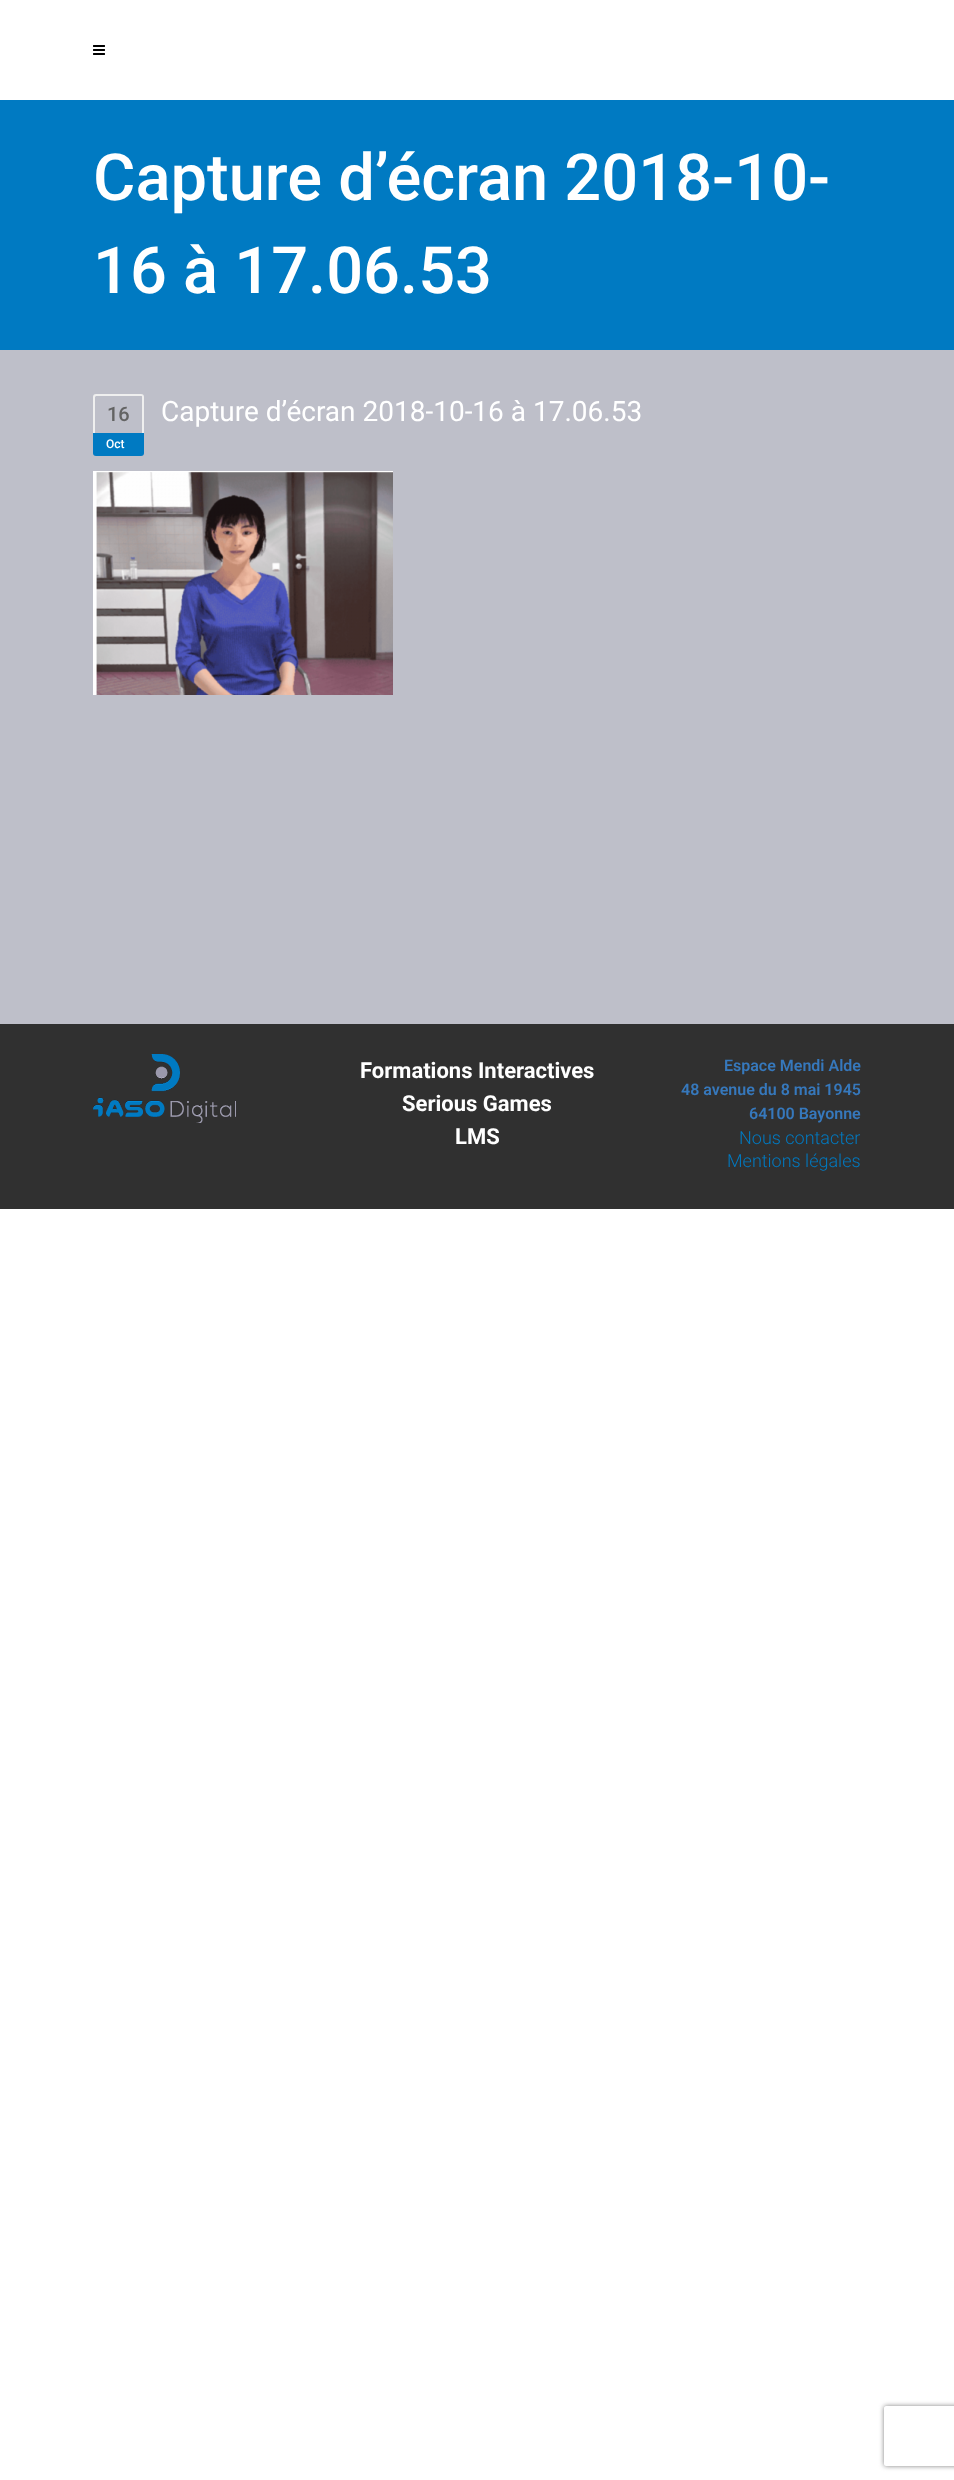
<!DOCTYPE html>
<meta charset="utf-8">
<style>body { margin: 0 } canvas { display: block }</style>
<canvas id="canvas" width="954" height="2480"></canvas>
<script type="module">
  const canvas = document.getElementById("canvas");
  const g = canvas.getContext("2d");
  g.miterLimit = 4;
  g.fontKerning = "normal";
  function drawText(s, x, y, [font, color]) {
    g.font = font;
    g.fillStyle = color;
    g.fillText(s, x, y);
  }
  function fillBox(x, y, w, h, color) {
    g.fillStyle = color;
    g.fillRect(x, y, w, h);
  }
  async function drawPicture(src, x, y, w, h) {
    const img = new Image();
    img.src = src;
    await img.decode();
    g.drawImage(img, x, y, w, h);
  }

  const s1 = ["500 65px Roboto", "#FFFFFF"];
  const s2 = ["500 20px Roboto", "#636363"];
  const s3 = ["500 12px Roboto", "#FFFFFF"];
  const s4 = ["28px Roboto", "#FFFFFF"];
  const s5 = ["bold 22px Roboto", "#FFFFFF"];
  const s6 = ["600 16px Roboto", "#3678BC"];
  const s7 = ["300 18px Roboto", "#007AC2"];

  fillBox(0, 0, 954, 2480, "#FFFFFF");
  await drawPicture("pic1.png", 93, 45, 12, 10);
  fillBox(0, 100, 954, 250, "#007AC2");
  drawText("Capture d’écran 2018-10-", 93, 200, s1);
  drawText("16 à 17.06.53", 93, 293, s1);
  fillBox(0, 350, 954, 674, "#BEBFC9");
  g.fillStyle = "#EFEFEF";
  g.beginPath();
  g.moveTo(96, 394);
  g.lineTo(141, 394);
  g.bezierCurveTo(143, 394, 144, 395, 144, 397);
  g.lineTo(144, 433);
  g.lineTo(93, 433);
  g.lineTo(93, 397);
  g.bezierCurveTo(93, 395, 94, 394, 96, 394);
  g.closePath();
  g.moveTo(96, 396);
  g.lineTo(141, 396);
  g.bezierCurveTo(142, 396, 142, 396, 142, 397);
  g.lineTo(142, 433);
  g.lineTo(95, 433);
  g.lineTo(95, 397);
  g.closePath();
  g.fill("evenodd");
  drawText("16", 107, 421, s2);
  g.fillStyle = "#007AC2";
  g.beginPath();
  g.roundRect(93, 433, 51, 23, [0, 0, 3, 3]);
  g.fill();
  drawText("Oct", 106, 448, s3);
  drawText("Capture d’écran 2018-10-16 à 17.06.53", 161, 421, s4);
  await drawPicture("pic2.png", 93, 471, 300, 224);
  fillBox(0, 1024, 954, 185, "#303030");
  await drawPicture("pic3.png", 93, 1054, 143, 69);
  drawText("Formations Interactives", 360, 1078, s5);
  drawText("Serious Games", 402, 1111, s5);
  drawText("LMS", 455, 1144, s5);
  drawText("Espace Mendi Alde", 724, 1071, s6);
  drawText("48 avenue du 8 mai 1945", 681, 1095, s6);
  drawText("64100 Bayonne", 749, 1119, s6);
  drawText("Nous contacter", 739, 1144, s7);
  drawText("Mentions légales", 727, 1167, s7);
  g.save();
  g.beginPath();
  g.moveTo(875, 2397);
  g.lineTo(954, 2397);
  g.lineTo(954, 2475);
  g.lineTo(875, 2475);
  g.closePath();
  g.moveTo(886, 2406);
  g.lineTo(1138, 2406);
  g.bezierCurveTo(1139, 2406, 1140, 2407, 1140, 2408);
  g.lineTo(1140, 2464);
  g.bezierCurveTo(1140, 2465, 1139, 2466, 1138, 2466);
  g.lineTo(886, 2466);
  g.bezierCurveTo(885, 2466, 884, 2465, 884, 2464);
  g.lineTo(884, 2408);
  g.bezierCurveTo(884, 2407, 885, 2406, 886, 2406);
  g.closePath();
  g.clip("evenodd");
  g.fillStyle = "#808080";
  g.filter = "blur(2.5px)";
  g.beginPath();
  g.roundRect(884, 2406, 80, 60, 2);
  g.fill();
  g.filter = "none";
  g.restore();
</script>
